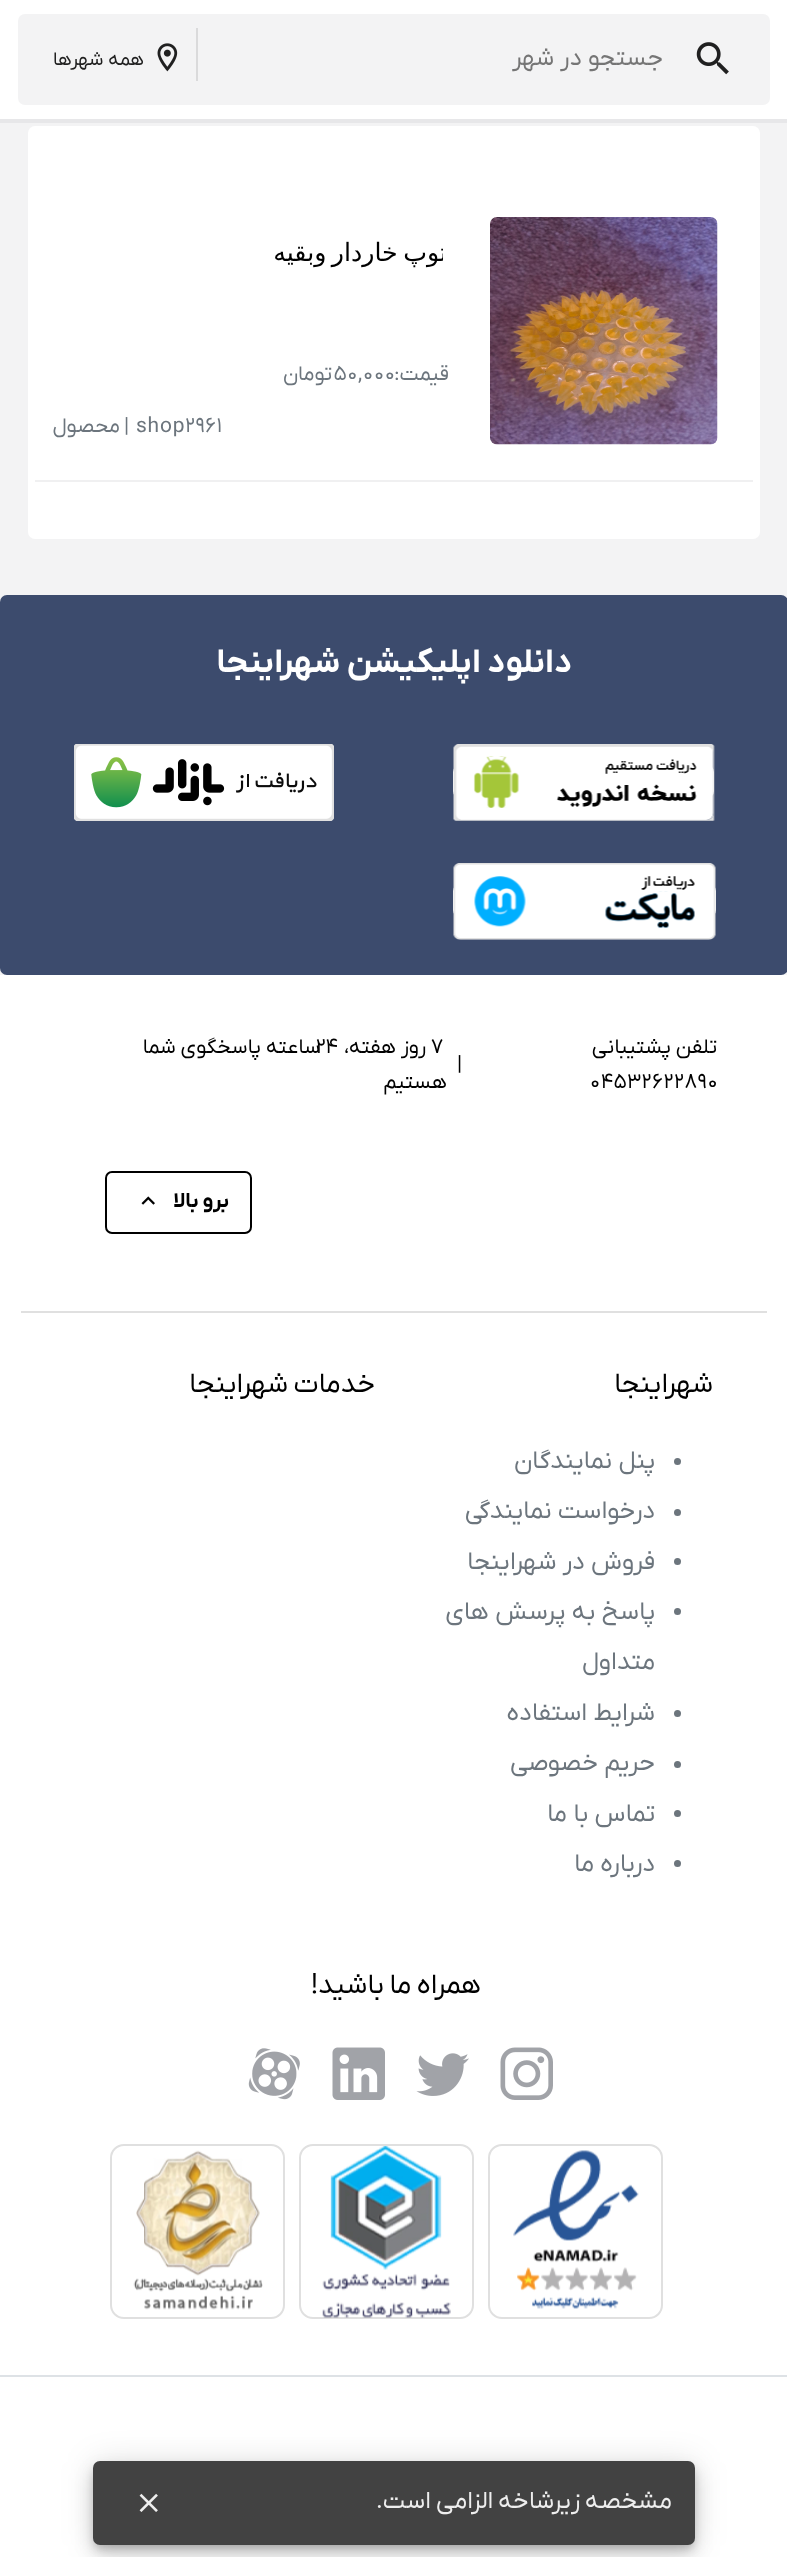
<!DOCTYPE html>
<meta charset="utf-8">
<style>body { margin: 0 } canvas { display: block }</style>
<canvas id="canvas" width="787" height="2557"></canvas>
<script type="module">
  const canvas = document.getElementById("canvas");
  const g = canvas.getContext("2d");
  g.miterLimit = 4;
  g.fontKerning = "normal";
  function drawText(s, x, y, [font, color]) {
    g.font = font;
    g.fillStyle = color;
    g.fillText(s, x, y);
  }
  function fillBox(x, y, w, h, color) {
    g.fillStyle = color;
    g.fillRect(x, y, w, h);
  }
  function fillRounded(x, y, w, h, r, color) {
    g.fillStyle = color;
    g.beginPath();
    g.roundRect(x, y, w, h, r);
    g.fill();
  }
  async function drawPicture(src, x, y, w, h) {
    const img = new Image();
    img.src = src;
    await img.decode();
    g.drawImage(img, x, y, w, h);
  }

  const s1 = ["24.5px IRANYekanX", "#757575"];
  const s2 = ["19.25px IRANYekanX", "#202020"];
  const s3 = ["25.25px DejaVu Sans", "#000000"];
  const s4 = ["21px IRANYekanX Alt", "#6C757D"];
  const s5 = ["21px IRANYekanX", "#6C757D"];
  const s6 = ["bold 33.6px IRANYekanX", "#FFFFFF"];
  const s7 = ["21px IRANYekanX", "#000000"];
  const s8 = ["21px IRANYekanX Alt", "#000000"];
  const s9 = ["bold 21px IRANYekanX", "#000000"];
  const s10 = ["28px IRANYekanX", "#000000"];
  const s11 = ["25.25px IRANYekanX", "#6C757D"];
  const s12 = ["24.5px IRANYekanX", "#EEEEEE"];

  fillBox(0, 0, 787, 2557, "#FFFFFF");
  fillBox(0, 123, 787, 852, "#F3F3F4");
  fillBox(0, 119, 787, 4, "#E7E7E9");
  fillRounded(18, 14, 752, 91, 7, "#F3F3F4");
  await drawPicture("pic1.png", 696, 42, 33, 33);
  g.direction = "rtl";
  drawText("جستجو در شهر", 663, 65, s1);
  fillBox(196, 28, 2, 53, "#DADADB");
  await drawPicture("pic2.png", 157, 43, 21, 29);
  drawText("همه شهرها", 144, 65, s2);
  fillRounded(28, 126, 732, 413, 7, "#FFFFFF");
  fillBox(35, 480, 718, 2, "#F0F0F1");
  await drawPicture("pic3.png", 490, 217, 228, 228);
  g.save();
  g.beginPath();
  g.rect(58, 235, 385, 87);
  g.clip();
  g.letterSpacing = "0.4px";
  g.wordSpacing = "-3px";
  drawText("توپ خاردار وبقیه", 447, 261, s3);
  g.restore();
  g.letterSpacing = "0.75px";
  g.direction = "ltr";
  drawText("50,000", 334, 380, s4);
  g.direction = "rtl";
  drawText("قیمت:", 449, 380, s5);
  drawText("تومان", 332, 380, s5);
  g.direction = "ltr";
  drawText("shop2961", 136, 432, s4);
  drawText("|", 124, 432, s5);
  g.direction = "rtl";
  drawText("محصول", 120, 432, s5);
  fillRounded(0, 595, 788, 380, 7, "#3C4B6D");
  g.letterSpacing = "0px";
  drawText("دانلود اپلیکیشن شهراینجا", 572, 672, s6);
  fillRounded(453, 765, 261, 33, 7, "#FFFFFF");
  await drawPicture("pic4.png", 453, 744, 262, 77);
  await drawPicture("pic5.png", 74, 744, 260, 77);
  fillRounded(453, 884, 263, 33, 7, "#FFFFFF");
  await drawPicture("pic6.png", 453, 863, 263, 77);
  g.letterSpacing = "0.75px";
  g.wordSpacing = "-1px";
  drawText("تلفن پشتیبانی", 717, 1053, s7);
  g.wordSpacing = "0px";
  g.direction = "ltr";
  drawText("04532622890", 590, 1088, s8);
  drawText("|", 457, 1070, s7);
  drawText("۷", 431, 1053, s7);
  g.wordSpacing = "-1px";
  g.direction = "rtl";
  drawText("روز هفته،", 426, 1053, s7);
  drawText("ساعته پاسخگوی شما", 320, 1053, s7);
  g.wordSpacing = "0px";
  g.direction = "ltr";
  drawText("۲۴", 316, 1053, s7);
  g.direction = "rtl";
  drawText("هستیم", 447, 1088, s7);
  g.beginPath();
  g.roundRect(106, 1172, 145, 61, 6);
  g.strokeStyle = "#000000";
  g.lineWidth = 2;
  g.stroke();
  g.wordSpacing = "-1px";
  drawText("برو بالا", 229, 1207, s9);
  await drawPicture("pic7.png", 141, 1196, 14, 9);
  fillBox(21, 1311, 746, 2, "#E0E0E0");
  g.letterSpacing = "0.25px";
  g.wordSpacing = "0px";
  drawText("شهراینجا", 713, 1392, s10);
  g.fillStyle = "#6C757D";
  g.beginPath();
  g.arc(677.5, 1461.5, 3.5, 0, Math.PI * 2);
  g.fill();
  g.letterSpacing = "0px";
  drawText("پنل نمایندگان", 655, 1468, s11);
  g.beginPath();
  g.arc(677.5, 1512.5, 3.5, 0, Math.PI * 2);
  g.fill();
  drawText("درخواست نمایندگی", 655, 1518, s11);
  g.beginPath();
  g.arc(677.5, 1561.5, 3.5, 0, Math.PI * 2);
  g.fill();
  drawText("فروش در شهراینجا", 655, 1569, s11);
  g.beginPath();
  g.arc(677.5, 1611.5, 3.5, 0, Math.PI * 2);
  g.fill();
  drawText("پاسخ به پرسش های", 655, 1619, s11);
  drawText("متداول", 655, 1669, s11);
  g.beginPath();
  g.arc(677.5, 1713.5, 3.5, 0, Math.PI * 2);
  g.fill();
  drawText("شرایط استفاده", 655, 1720, s11);
  g.beginPath();
  g.arc(677.5, 1764.5, 3.5, 0, Math.PI * 2);
  g.fill();
  drawText("حریم خصوصی", 655, 1770, s11);
  g.beginPath();
  g.arc(677.5, 1813.5, 3.5, 0, Math.PI * 2);
  g.fill();
  drawText("تماس با ما", 655, 1821, s11);
  g.beginPath();
  g.arc(677.5, 1863.5, 3.5, 0, Math.PI * 2);
  g.fill();
  drawText("درباره ما", 655, 1871, s11);
  g.letterSpacing = "0.25px";
  g.wordSpacing = "-2px";
  drawText("خدمات شهراینجا", 375, 1392, s10);
  drawText("همراه ما باشید!", 481, 1993, s10);
  await drawPicture("pic8.png", 500, 2047, 53, 53);
  await drawPicture("pic9.png", 416, 2053, 53, 43);
  await drawPicture("pic10.png", 332, 2047, 53, 53);
  await drawPicture("pic11.png", 248, 2048, 52, 52);
  g.beginPath();
  g.roundRect(489, 2145, 173, 173, 13);
  g.strokeStyle = "#E0E0E0";
  g.stroke();
  await drawPicture("pic12.png", 513, 2150, 126, 159);
  g.beginPath();
  g.roundRect(300, 2145, 173, 173, 13);
  g.stroke();
  await drawPicture("pic13.png", 322, 2146, 129, 172);
  g.beginPath();
  g.roundRect(111, 2145, 173, 173, 13);
  g.stroke();
  await drawPicture("pic14.png", 133, 2150, 130, 160);
  fillBox(0, 2375, 787, 2, "#DEE2E6");
  g.fillStyle = "rgba(0, 0, 0, 0.12)";
  g.filter = "blur(16px)";
  g.beginPath();
  g.roundRect(93, 2462, 602, 84, 7);
  g.fill();
  g.filter = "none";
  g.fillStyle = "rgba(0, 0, 0, 0.14)";
  g.filter = "blur(9px)";
  g.beginPath();
  g.roundRect(93, 2471, 602, 84, 7);
  g.fill();
  g.filter = "none";
  g.fillStyle = "rgba(0, 0, 0, 0.2)";
  g.filter = "blur(4.5px)";
  g.beginPath();
  g.roundRect(95, 2468, 598, 80, 5);
  g.fill();
  g.filter = "none";
  fillRounded(93, 2461, 602, 84, 7, "#424242");
  g.letterSpacing = "0.4px";
  g.wordSpacing = "-1.5px";
  drawText("مشخصه زیرشاخه الزامی است.", 672, 2508, s12);
  await drawPicture("pic15.png", 139, 2493, 19, 19);
</script>
